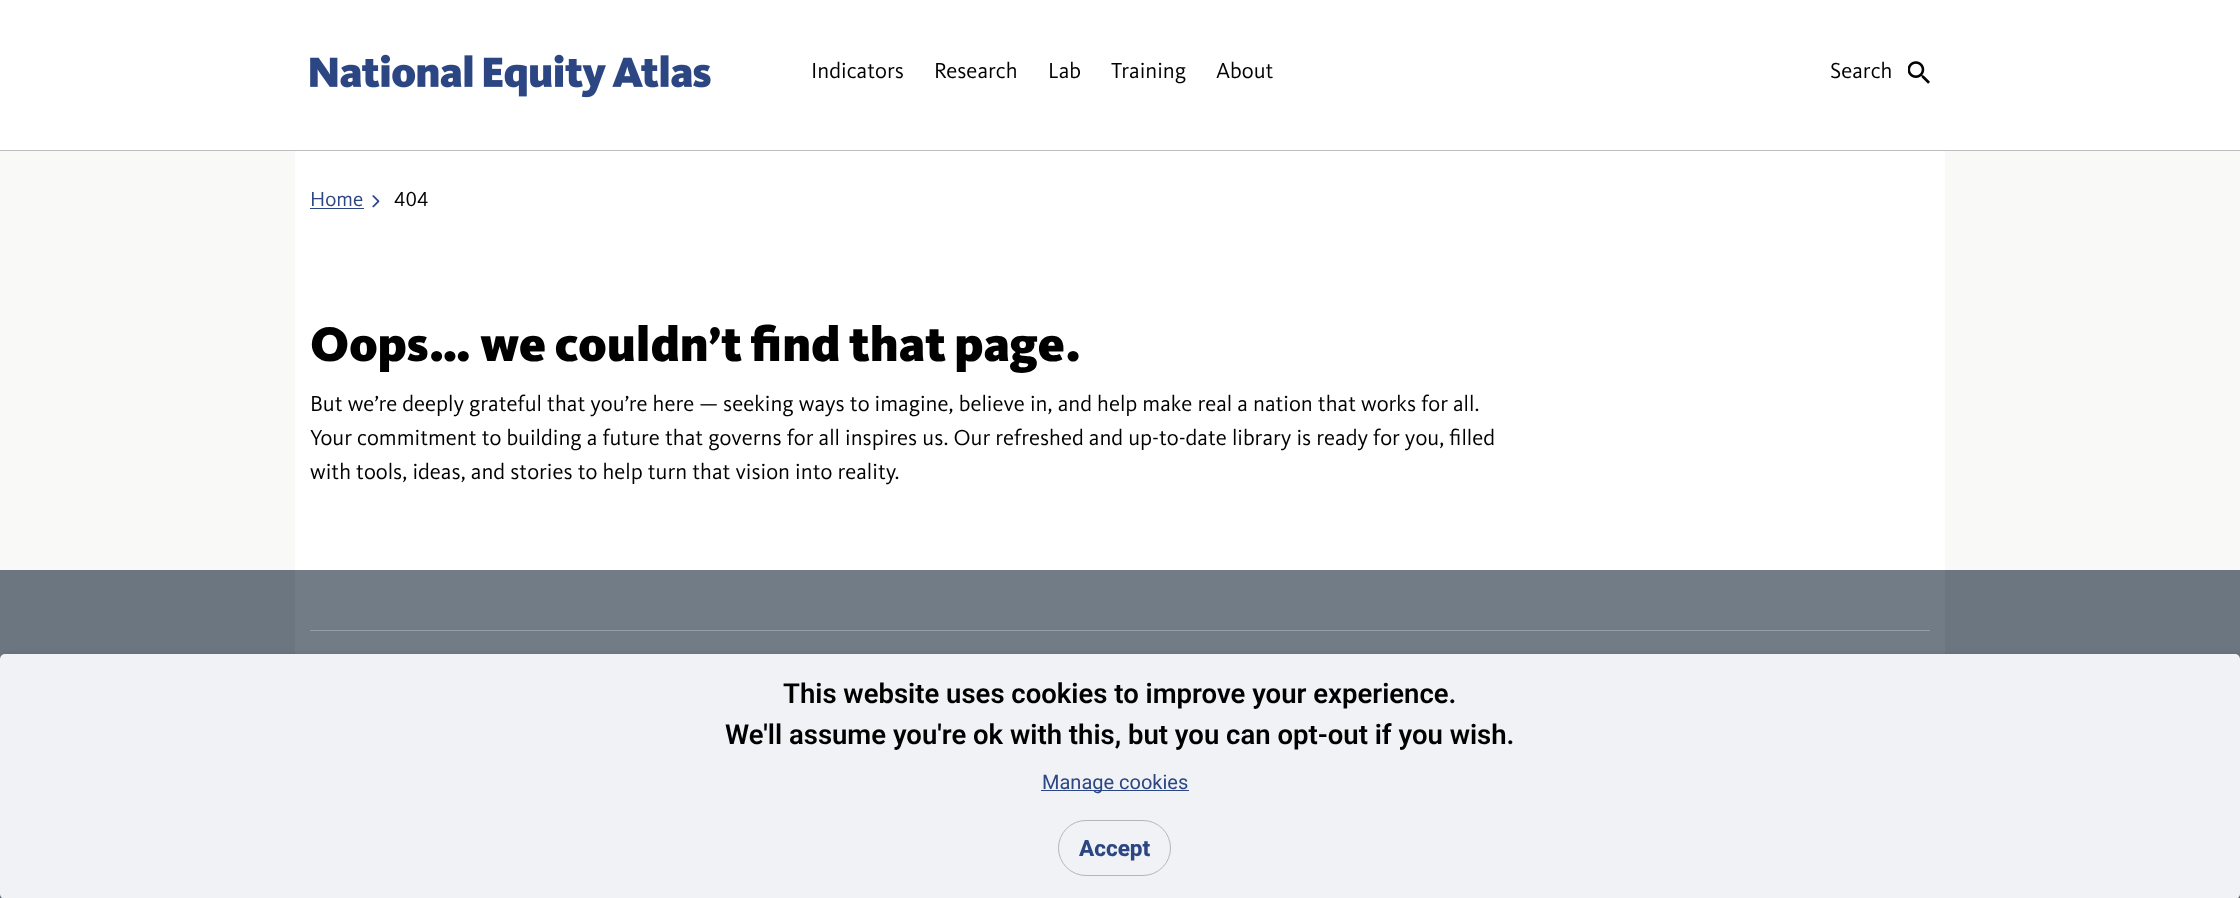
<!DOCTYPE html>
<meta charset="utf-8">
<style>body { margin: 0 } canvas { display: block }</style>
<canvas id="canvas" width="2240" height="898"></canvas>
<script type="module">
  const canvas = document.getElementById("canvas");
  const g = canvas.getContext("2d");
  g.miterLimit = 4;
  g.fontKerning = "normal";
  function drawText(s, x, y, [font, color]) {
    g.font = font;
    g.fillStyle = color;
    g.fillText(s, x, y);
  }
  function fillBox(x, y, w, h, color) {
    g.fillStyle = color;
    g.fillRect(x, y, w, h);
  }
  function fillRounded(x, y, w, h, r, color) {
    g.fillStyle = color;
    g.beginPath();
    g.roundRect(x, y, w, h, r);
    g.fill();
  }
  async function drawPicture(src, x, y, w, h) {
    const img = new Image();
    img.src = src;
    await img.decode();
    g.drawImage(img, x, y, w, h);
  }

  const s1 = ["22.5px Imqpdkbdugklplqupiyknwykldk", "#000000"];
  const s2 = ["21px Imqpdkbdugklplqupiyknwykldk", "#2B4683"];
  const s3 = ["21px Imqpdkbdugklplqupiyknwykldk", "#000000"];
  const s4 = ["900 50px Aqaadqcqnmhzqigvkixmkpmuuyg", "#000000"];
  const s5 = ["600 27.5px Roboto", "#000000"];
  const s6 = ["20px Roboto", "#2B4683"];
  const s7 = ["800 22.5px Roboto", "#2B4683"];

  fillBox(0, 0, 2240, 898, "#F9F9F8");
  fillBox(0, 0, 2240, 150, "#FFFFFF");
  fillBox(0, 150, 2240, 1, "#BFBFBF");
  await drawPicture("pic1.png", 310, 54, 401, 44);
  drawText("Indicators", 811, 78, s1);
  drawText("Research", 934, 78, s1);
  drawText("Lab", 1048, 78, s1);
  drawText("Training", 1111, 78, s1);
  drawText("About", 1216, 78, s1);
  drawText("Search", 1830, 78, s1);
  await drawPicture("pic2.png", 1908, 61, 22, 23);
  fillBox(295, 151, 1650, 419, "#FFFFFF");
  drawText("Home", 310, 206, s2);
  fillBox(310, 208, 54, 1, "#2B4683");
  await drawPicture("pic3.png", 372, 195, 8, 13);
  drawText("404", 394, 206, s3);
  drawText("Oops… we couldn’t find that page.", 310, 361, s4);
  drawText("But we’re deeply grateful that you’re here — seeking ways to imagine, believe in, and help make real a nation that works for all.", 310, 411, s1);
  drawText("Your commitment to building a future that governs for all inspires us. Our refreshed and up-to-date library is ready for you, filled", 310, 445, s1);
  drawText("with tools, ideas, and stories to help turn that vision into reality.", 310, 479, s1);
  fillBox(0, 570, 2240, 328, "#6C7680");
  fillBox(295, 570, 1650, 84, "#727C86");
  fillBox(310, 630, 1620, 1, "#959DA4");
  g.fillStyle = "rgba(0, 0, 0, 0.19)";
  g.filter = "blur(6px)";
  g.beginPath();
  g.roundRect(6, 660, 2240, 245, 5);
  g.fill();
  g.filter = "none";
  g.fillStyle = "rgba(0, 0, 0, 0.2)";
  g.filter = "blur(4px)";
  g.beginPath();
  g.roundRect(0, 659, 2240, 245, 5);
  g.fill();
  g.filter = "none";
  fillRounded(0, 654, 2240, 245, 5, "#F0F2F5");
  drawText("This website uses cookies to improve your experience.", 783, 703, s5);
  drawText("We'll assume you're ok with this, but you can opt-out if you wish.", 725, 744, s5);
  fillBox(1041, 790, 148, 1, "#2B4683");
  drawText("Manage cookies", 1042, 789, s6);
  g.beginPath();
  g.roundRect(1058.5, 820.5, 112, 55, 27.5);
  g.strokeStyle = "#B4B6B8";
  g.stroke();
  drawText("Accept", 1079, 856, s7);
</script>
